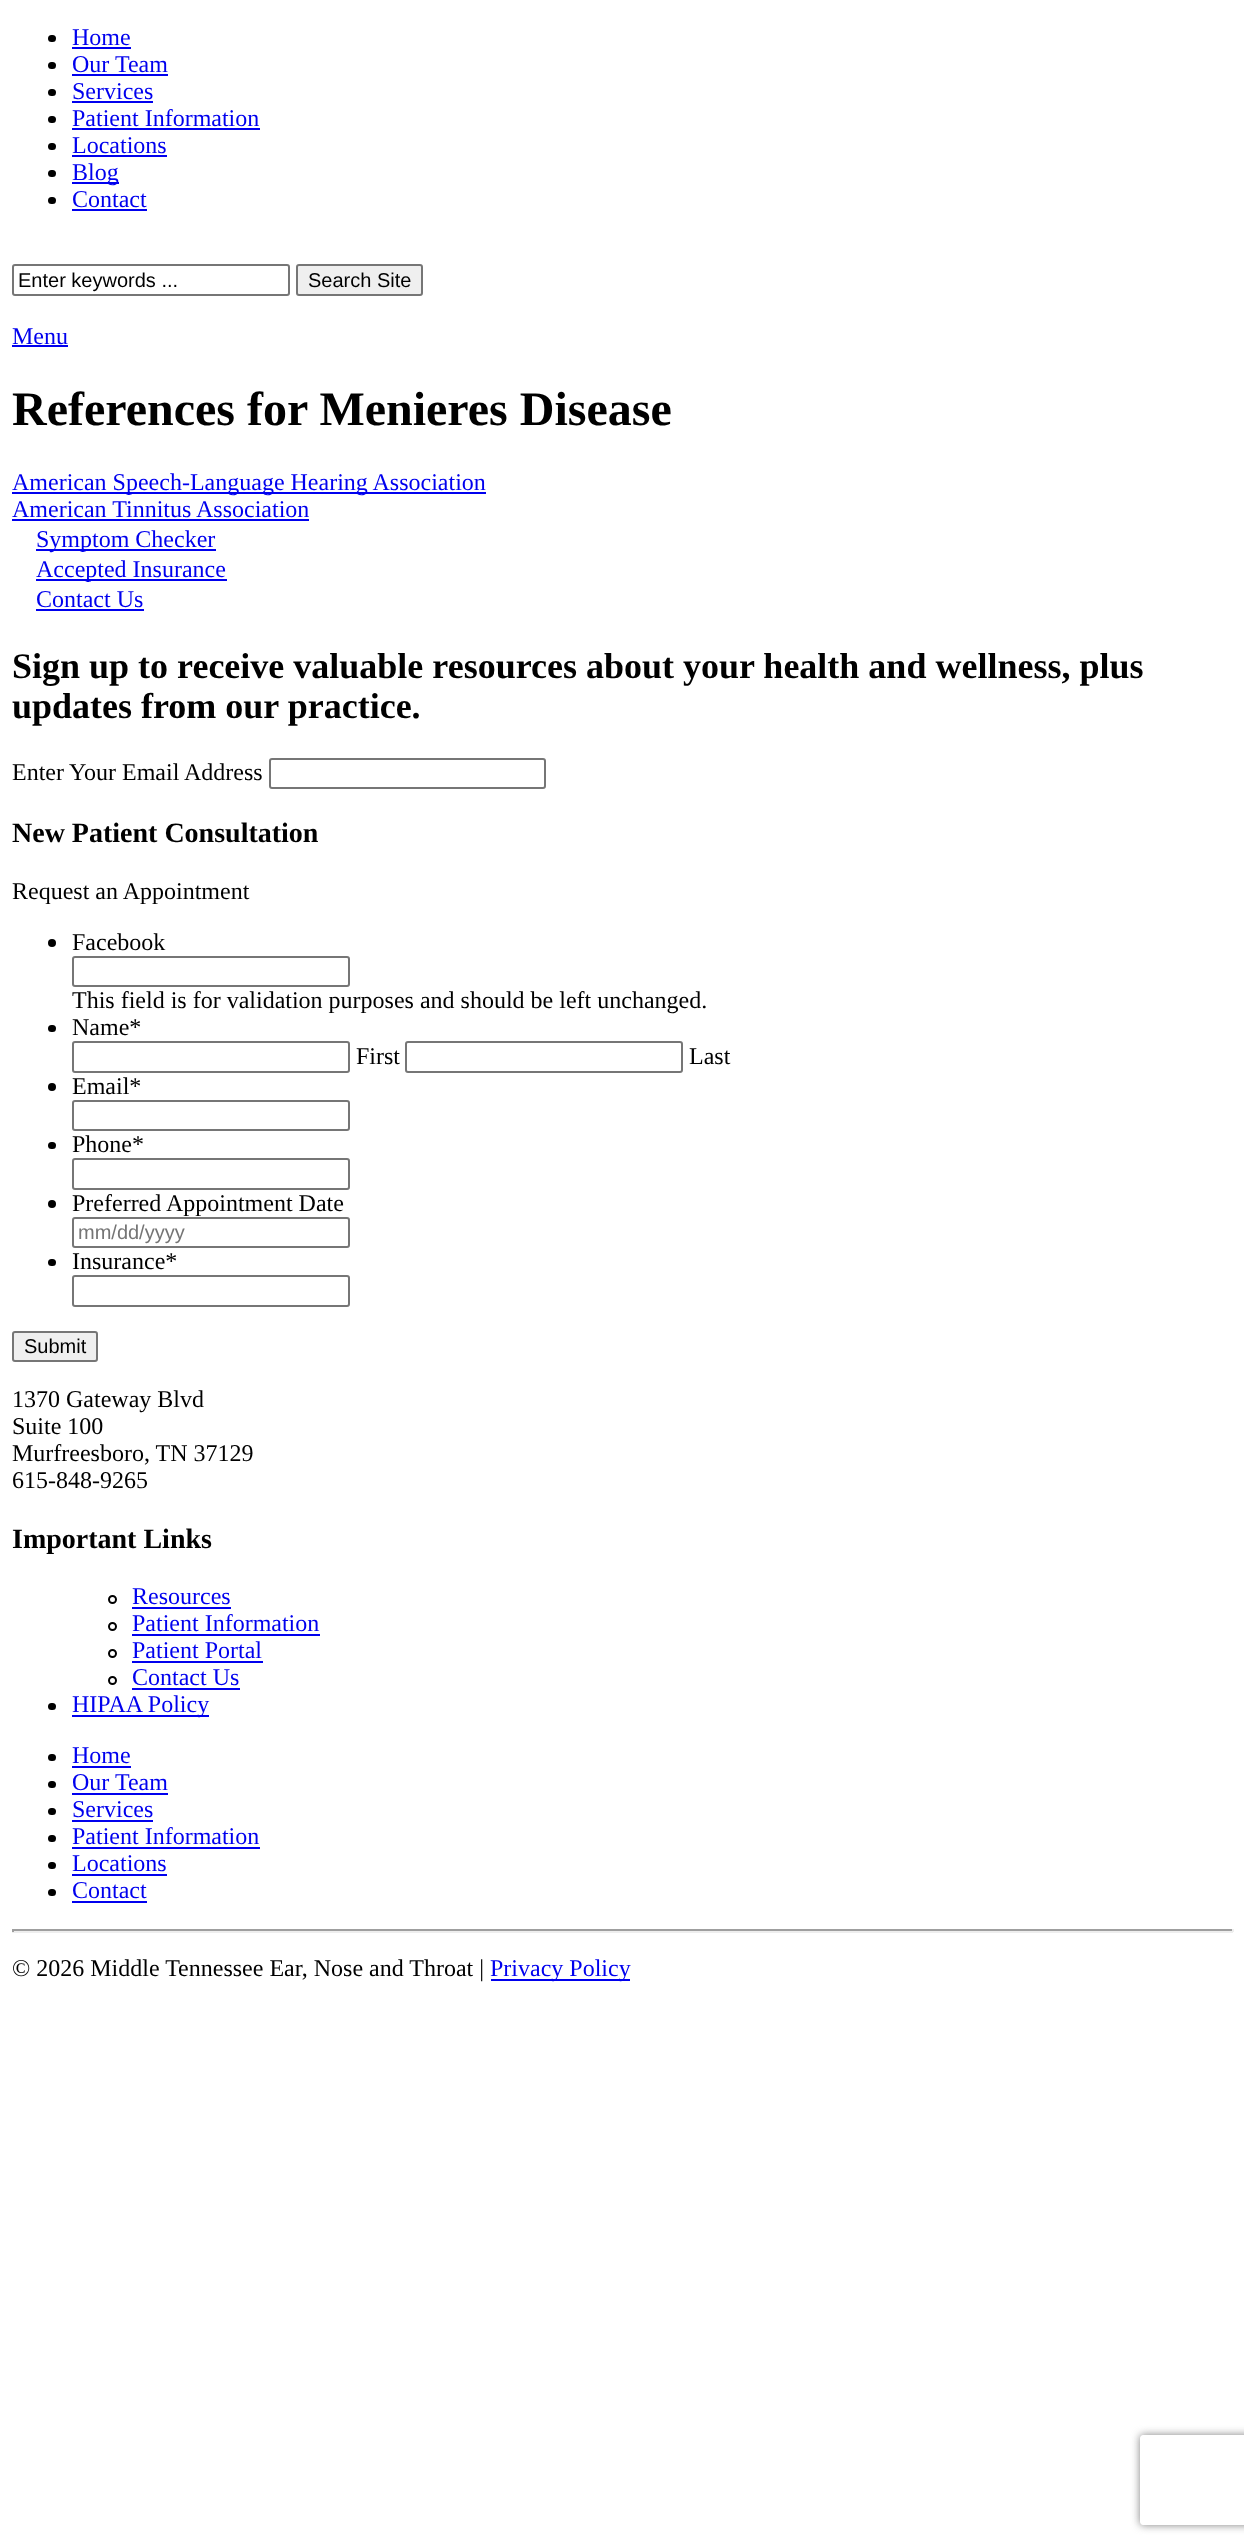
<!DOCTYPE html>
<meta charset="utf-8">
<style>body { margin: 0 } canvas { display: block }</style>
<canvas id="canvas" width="1244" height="2545"></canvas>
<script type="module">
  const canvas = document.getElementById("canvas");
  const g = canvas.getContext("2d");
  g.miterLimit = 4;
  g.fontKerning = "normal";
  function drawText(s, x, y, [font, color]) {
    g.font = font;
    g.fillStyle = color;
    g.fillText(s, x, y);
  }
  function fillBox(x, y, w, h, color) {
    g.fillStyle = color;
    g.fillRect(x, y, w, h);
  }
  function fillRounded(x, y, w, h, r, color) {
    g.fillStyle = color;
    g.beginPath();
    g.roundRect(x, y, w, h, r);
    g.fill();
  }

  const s1 = ["24px Liberation Serif", "#0000EE"];
  const s2 = ["20px Liberation Sans", "#000000"];
  const s3 = ["bold 48px Liberation Serif", "#000000"];
  const s4 = ["bold 36px Liberation Serif", "#000000"];
  const s5 = ["24px Liberation Serif", "#000000"];
  const s6 = ["bold 28px Liberation Serif", "#000000"];
  const s7 = ["20px Liberation Sans", "#757575"];

  fillBox(0, 0, 1244, 2545, "#FFFFFF");
  fillRounded(48, 35, 8, 7, 3.5, "#000000");
  drawText("Home", 72, 45, s1);
  fillBox(72, 47, 59, 2, "#0000EE");
  fillRounded(48, 62, 8, 7, 3.5, "#000000");
  drawText("Our Team", 72, 72, s1);
  fillBox(72, 74, 96, 2, "#0000EE");
  fillRounded(48, 89, 8, 7, 3.5, "#000000");
  drawText("Services", 72, 99, s1);
  fillBox(72, 101, 81, 2, "#0000EE");
  fillRounded(48, 116, 8, 7, 3.5, "#000000");
  drawText("Patient Information", 72, 126, s1);
  fillBox(72, 128, 188, 2, "#0000EE");
  fillRounded(48, 143, 8, 7, 3.5, "#000000");
  drawText("Locations", 72, 153, s1);
  fillBox(72, 155, 95, 2, "#0000EE");
  fillRounded(48, 170, 8, 7, 3.5, "#000000");
  fillBox(72, 182, 47, 2, "#0000EE");
  drawText("Blog", 72, 180, s1);
  fillRounded(48, 197, 8, 7, 3.5, "#000000");
  drawText("Contact", 72, 207, s1);
  fillBox(72, 209, 75, 2, "#0000EE");
  g.beginPath();
  g.roundRect(13, 265, 276, 30, 2);
  g.strokeStyle = "#767676";
  g.lineWidth = 2;
  g.stroke();
  drawText("Enter keywords ...", 18, 287, s2);
  g.fillStyle = "#EFEFEF";
  g.beginPath();
  g.roundRect(297, 265, 125, 30, 2);
  g.fill();
  g.stroke();
  drawText("Search Site", 308, 287, s2);
  drawText("Menu", 12, 344, s1);
  fillBox(12, 345, 56, 2, "#0000EE");
  drawText("References for Menieres Disease", 12, 425, s3);
  fillBox(12, 492, 474, 2, "#0000EE");
  drawText("American Speech-Language Hearing Association", 12, 490, s1);
  drawText("American Tinnitus Association", 12, 517, s1);
  fillBox(12, 519, 297, 2, "#0000EE");
  fillBox(36, 549, 180, 2, "#0000EE");
  drawText("Symptom Checker", 36, 547, s1);
  fillBox(36, 579, 191, 2, "#0000EE");
  drawText("Accepted Insurance", 36, 577, s1);
  drawText("Contact Us", 36, 607, s1);
  fillBox(36, 609, 108, 2, "#0000EE");
  drawText("Sign up to receive valuable resources about your health and wellness, plus", 12, 678, s4);
  drawText("updates from our practice.", 12, 718, s4);
  drawText("Enter Your Email Address", 12, 780, s5);
  g.beginPath();
  g.roundRect(270, 759, 275, 29, 2);
  g.stroke();
  drawText("New Patient Consultation", 12, 842, s6);
  drawText("Request an Appointment", 12, 899, s5);
  g.beginPath();
  g.arc(52, 943, 4, 0, Math.PI * 2);
  g.fill();
  drawText("Facebook", 72, 950, s5);
  g.beginPath();
  g.roundRect(73, 957, 276, 29, 2);
  g.stroke();
  drawText("This field is for validation purposes and should be left unchanged.", 72, 1008, s5);
  fillRounded(48, 1025, 8, 7, 3.5, "#000000");
  drawText("Name*", 72, 1035, s5);
  g.beginPath();
  g.roundRect(73, 1042, 276, 30, 2);
  g.stroke();
  drawText("First", 356, 1064, s5);
  g.beginPath();
  g.roundRect(406, 1042, 276, 30, 2);
  g.stroke();
  drawText("Last", 689, 1064, s5);
  g.beginPath();
  g.arc(52, 1087, 4, 0, Math.PI * 2);
  g.fill();
  drawText("Email*", 72, 1094, s5);
  g.beginPath();
  g.roundRect(73, 1101, 276, 29, 2);
  g.stroke();
  fillRounded(48, 1142, 8, 7, 3.5, "#000000");
  drawText("Phone*", 72, 1152, s5);
  g.beginPath();
  g.roundRect(73, 1159, 276, 30, 2);
  g.stroke();
  g.beginPath();
  g.arc(52, 1204, 4, 0, Math.PI * 2);
  g.fill();
  drawText("Preferred Appointment Date", 72, 1211, s5);
  g.beginPath();
  g.roundRect(73, 1218, 276, 29, 2);
  g.stroke();
  drawText("mm/dd/yyyy", 78, 1239, s7);
  fillRounded(48, 1259, 8, 7, 3.5, "#000000");
  drawText("Insurance*", 72, 1269, s5);
  g.beginPath();
  g.roundRect(73, 1276, 276, 30, 2);
  g.stroke();
  g.fillStyle = "#EFEFEF";
  g.beginPath();
  g.roundRect(13, 1332, 84, 29, 2);
  g.fill();
  g.stroke();
  drawText("Submit", 24, 1353, s2);
  drawText("1370 Gateway Blvd", 12, 1407, s5);
  drawText("Suite 100", 12, 1434, s5);
  drawText("Murfreesboro, TN 37129", 12, 1461, s5);
  drawText("615-848-9265", 12, 1488, s5);
  drawText("Important Links", 12, 1548, s6);
  g.beginPath();
  g.arc(112.5, 1599.5, 3.5, 0, Math.PI * 2);
  g.strokeStyle = "#000000";
  g.stroke();
  drawText("Resources", 132, 1604, s1);
  fillBox(132, 1607, 99, 2, "#0000EE");
  g.beginPath();
  g.arc(112.5, 1626.5, 3.5, 0, Math.PI * 2);
  g.stroke();
  drawText("Patient Information", 132, 1631, s1);
  fillBox(132, 1634, 188, 2, "#0000EE");
  g.beginPath();
  g.arc(112.5, 1653.5, 3.5, 0, Math.PI * 2);
  g.stroke();
  drawText("Patient Portal", 132, 1658, s1);
  fillBox(132, 1661, 131, 2, "#0000EE");
  g.beginPath();
  g.arc(112.5, 1680.5, 3.5, 0, Math.PI * 2);
  g.stroke();
  drawText("Contact Us", 132, 1685, s1);
  fillBox(132, 1688, 108, 2, "#0000EE");
  fillRounded(48, 1703, 8, 7, 3.5, "#000000");
  fillBox(72, 1715, 137, 2, "#0000EE");
  drawText("HIPAA Policy", 72, 1712, s1);
  fillRounded(48, 1754, 8, 7, 3.5, "#000000");
  drawText("Home", 72, 1763, s1);
  fillBox(72, 1766, 59, 2, "#0000EE");
  fillRounded(48, 1781, 8, 7, 3.5, "#000000");
  drawText("Our Team", 72, 1790, s1);
  fillBox(72, 1793, 96, 2, "#0000EE");
  fillRounded(48, 1808, 8, 7, 3.5, "#000000");
  drawText("Services", 72, 1817, s1);
  fillBox(72, 1820, 81, 2, "#0000EE");
  fillRounded(48, 1835, 8, 7, 3.5, "#000000");
  drawText("Patient Information", 72, 1844, s1);
  fillBox(72, 1847, 188, 2, "#0000EE");
  fillRounded(48, 1862, 8, 7, 3.5, "#000000");
  drawText("Locations", 72, 1871, s1);
  fillBox(72, 1874, 95, 2, "#0000EE");
  fillRounded(48, 1889, 8, 7, 3.5, "#000000");
  drawText("Contact", 72, 1898, s1);
  fillBox(72, 1901, 75, 2, "#0000EE");
  fillBox(12, 1929, 1221, 2, "#9F9F9F");
  fillBox(1232, 1929, 2, 3, "#EEEEEE");
  fillBox(12, 1931, 1221, 2, "#EEEEEE");
  fillBox(12, 1929, 2, 3, "#9F9F9F");
  drawText("© 2026 Middle Tennessee Ear, Nose and Throat |", 12, 1976, s5);
  fillBox(491, 1979, 139, 2, "#0000EE");
  drawText("Privacy Policy", 490, 1976, s1);
  g.save();
  g.beginPath();
  g.moveTo(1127, 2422);
  g.lineTo(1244, 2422);
  g.lineTo(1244, 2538);
  g.lineTo(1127, 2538);
  g.closePath();
  g.moveTo(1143, 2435);
  g.lineTo(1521, 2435);
  g.bezierCurveTo(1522.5, 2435, 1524, 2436.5, 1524, 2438);
  g.lineTo(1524, 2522);
  g.bezierCurveTo(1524, 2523.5, 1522.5, 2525, 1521, 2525);
  g.lineTo(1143, 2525);
  g.bezierCurveTo(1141.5, 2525, 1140, 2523.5, 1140, 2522);
  g.lineTo(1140, 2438);
  g.bezierCurveTo(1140, 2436.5, 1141.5, 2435, 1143, 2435);
  g.closePath();
  g.clip("evenodd");
  g.fillStyle = "#808080";
  g.filter = "blur(4px)";
  g.beginPath();
  g.roundRect(1140, 2435, 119, 90, 3);
  g.fill();
  g.filter = "none";
  g.restore();
</script>
